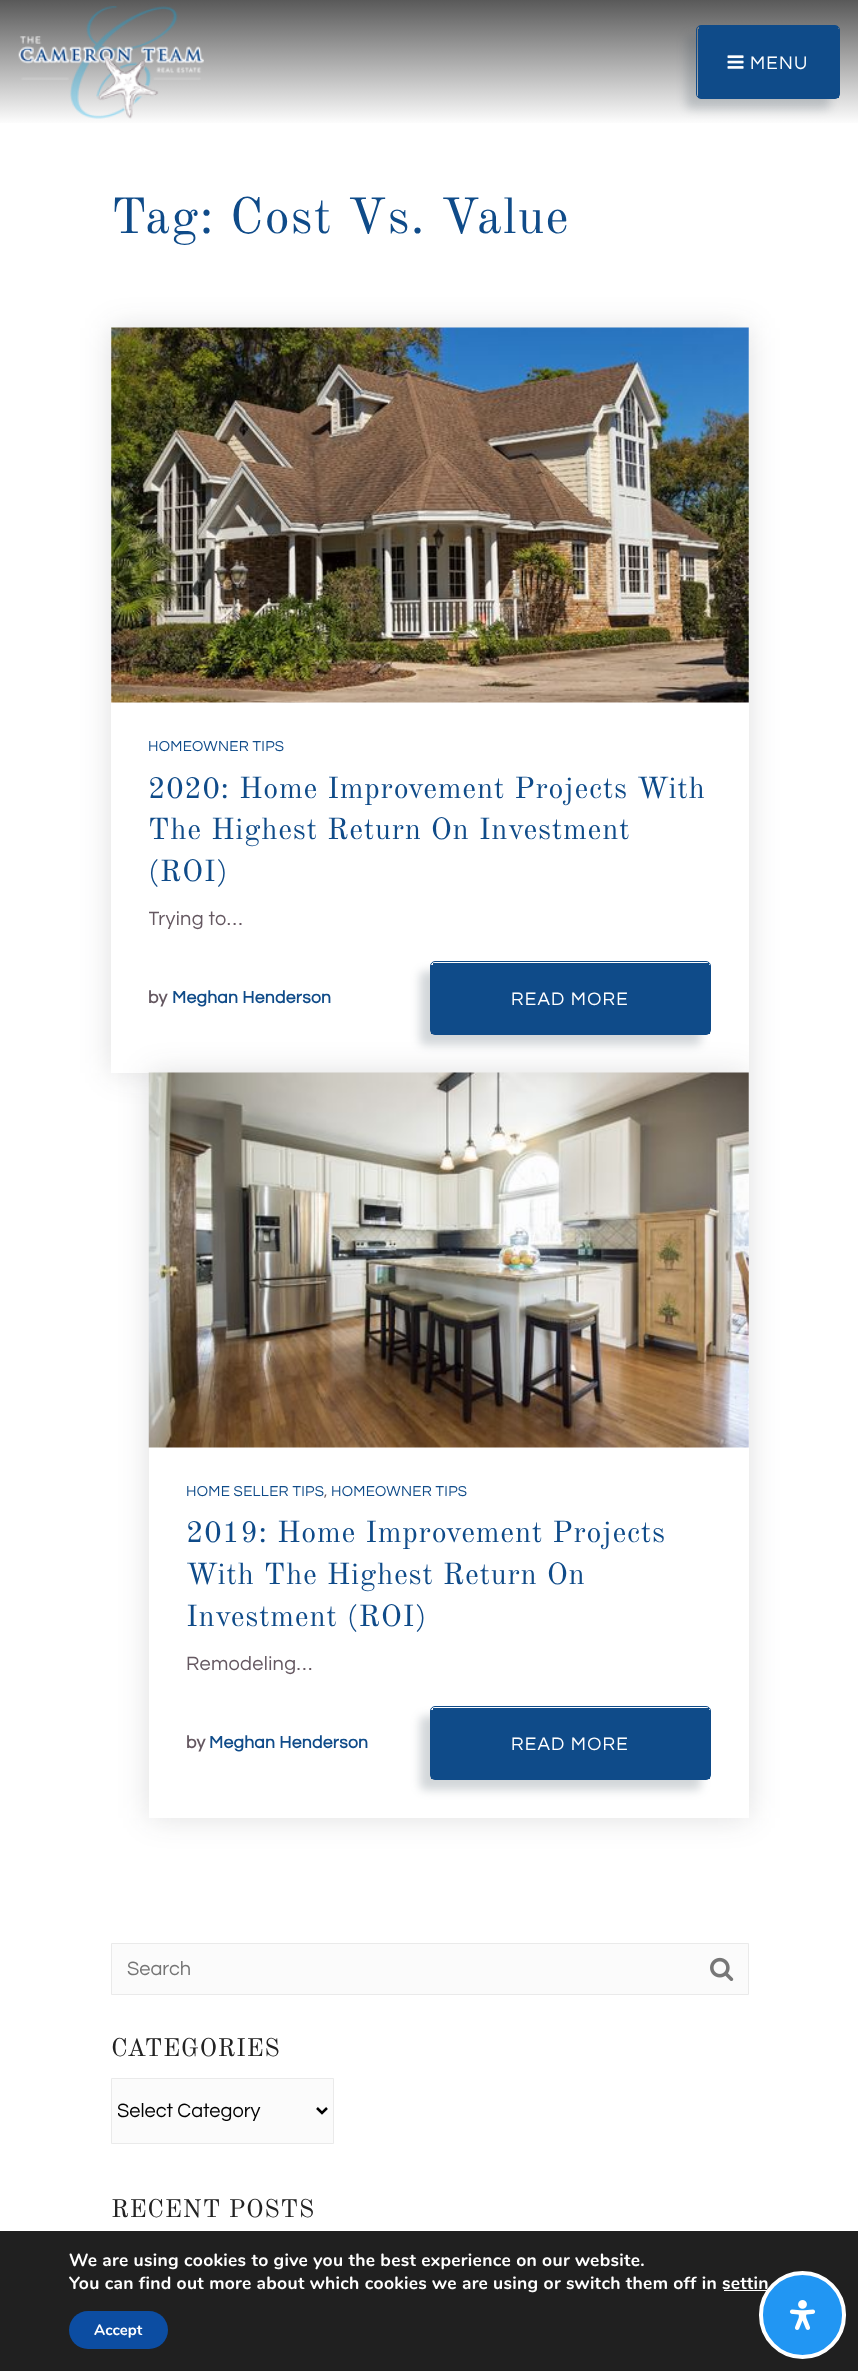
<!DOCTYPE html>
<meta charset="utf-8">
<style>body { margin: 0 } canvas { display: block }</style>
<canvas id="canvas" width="858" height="2371"></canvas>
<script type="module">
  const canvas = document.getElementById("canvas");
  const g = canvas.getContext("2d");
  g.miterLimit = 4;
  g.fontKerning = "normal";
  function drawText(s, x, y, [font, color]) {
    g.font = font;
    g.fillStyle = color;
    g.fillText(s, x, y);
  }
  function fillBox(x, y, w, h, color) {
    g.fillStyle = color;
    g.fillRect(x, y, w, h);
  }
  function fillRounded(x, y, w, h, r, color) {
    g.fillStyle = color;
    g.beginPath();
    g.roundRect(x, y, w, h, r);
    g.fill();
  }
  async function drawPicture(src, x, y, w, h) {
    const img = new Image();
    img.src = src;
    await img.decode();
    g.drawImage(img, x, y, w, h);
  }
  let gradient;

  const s1 = ["18.75px Questrial", "#FFFFFF"];
  const s2 = ["50px Old Standard TT", "#0F4B89"];
  const s3 = ["15px Questrial", "#0F4B89"];
  const s4 = ["30px Old Standard TT", "#0F4B89"];
  const s5 = ["20px Questrial", "#655861"];
  const s6 = ["bold 17.5px Questrial", "#655861"];
  const s7 = ["bold 17.5px Questrial", "#0F4B89"];
  const s8 = ["15px Questrial", "#655861"];
  const s9 = ["20px Questrial", "#757575"];
  const s10 = ["25px Old Standard TT", "#222222"];
  const s11 = ["20px Questrial", "#000000"];
  const s12 = ["bold 17.5px Nunito", "#FFFFFF"];
  const s13 = ["bold 15px Nunito", "#FFFFFF"];

  fillBox(0, 0, 858, 2371, "#FFFFFF");
  gradient = g.createLinearGradient(429, 0, 429, 125);
  gradient.addColorStop(0, "#595959");
  gradient.addColorStop(1, "#FFFFFF");
  g.fillStyle = gradient;
  g.fillRect(0, 0, 858, 123);
  await drawPicture("pic1.png", 18, 6, 186, 113);
  g.fillStyle = "rgba(60, 78, 89, 0.23)";
  g.filter = "blur(5px)";
  g.beginPath();
  g.roundRect(686, 35, 144, 74, 5);
  g.fill();
  g.filter = "none";
  g.beginPath();
  g.roundRect(696.5, 25.5, 143, 73, 4.5);
  g.strokeStyle = "#0F4B89";
  g.stroke();
  fillBox(699, 26, 139, 3, "#0F4B89");
  fillBox(698, 29, 141, 69, "#0F4B89");
  await drawPicture("pic2.png", 727, 55, 17, 14);
  g.letterSpacing = "1.25px";
  drawText("MENU", 750, 69, s1);
  drawText("Tag: Cost Vs. Value", 111, 233, s2);
  g.fillStyle = "rgba(41, 43, 44, 0.15)";
  g.filter = "blur(15.5px)";
  g.beginPath();
  g.rect(111, 328, 638, 745);
  g.fill();
  g.filter = "none";
  fillBox(111, 328, 638, 745, "#FFFFFF");
  await drawPicture("pic3.png", 111, 327, 638, 376);
  g.letterSpacing = "0.3px";
  drawText("HOMEOWNER TIPS", 148, 751, s3);
  g.letterSpacing = "0.75px";
  drawText("2020: Home Improvement Projects With", 148, 798, s4);
  drawText("The Highest Return On Investment", 148, 839, s4);
  drawText("(ROI)", 148, 881, s4);
  g.save();
  g.beginPath();
  g.rect(149, 903, 562, 33);
  g.clip();
  g.letterSpacing = "0.3px";
  drawText("Trying to…", 148, 925, s5);
  g.restore();
  g.letterSpacing = "0.3px";
  drawText("by", 148, 1003, s6);
  drawText("Meghan Henderson", 172, 1003, s7);
  g.fillStyle = "rgba(60, 78, 89, 0.23)";
  g.filter = "blur(5px)";
  g.beginPath();
  g.roundRect(420, 971, 281, 74, 5);
  g.fill();
  g.filter = "none";
  g.fillStyle = "rgba(41, 43, 44, 0.15)";
  g.filter = "blur(15.5px)";
  g.beginPath();
  g.rect(149, 1073, 600, 745);
  g.fill();
  g.filter = "none";
  g.beginPath();
  g.roundRect(430.5, 961.5, 280, 73, 4.5);
  g.stroke();
  fillBox(433, 963, 276, 2, "#0F4B89");
  fillBox(431, 965, 279, 69, "#0F4B89");
  g.letterSpacing = "1.25px";
  drawText("READ MORE", 511, 1005, s1);
  fillBox(149, 1073, 600, 745, "#FFFFFF");
  await drawPicture("pic4.png", 148, 1072, 601, 376);
  g.letterSpacing = "0.3px";
  drawText("HOME SELLER TIPS", 186, 1496, s3);
  drawText(",", 324, 1496, s8);
  drawText("HOMEOWNER TIPS", 331, 1496, s3);
  g.letterSpacing = "0.75px";
  drawText("2019: Home Improvement Projects", 186, 1542, s4);
  drawText("With The Highest Return On", 186, 1584, s4);
  drawText("Investment (ROI)", 186, 1626, s4);
  g.letterSpacing = "0.3px";
  drawText("Remodeling…", 186, 1670, s5);
  drawText("by", 186, 1748, s6);
  drawText("Meghan Henderson", 209, 1748, s7);
  g.fillStyle = "rgba(60, 78, 89, 0.23)";
  g.filter = "blur(5px)";
  g.beginPath();
  g.roundRect(420, 1716, 281, 74, 5);
  g.fill();
  g.filter = "none";
  g.beginPath();
  g.roundRect(430.5, 1706.5, 280, 73, 4.5);
  g.stroke();
  fillBox(433, 1708, 276, 2, "#0F4B89");
  fillBox(431, 1710, 279, 69, "#0F4B89");
  g.letterSpacing = "1.25px";
  drawText("READ MORE", 511, 1750, s1);
  g.fillStyle = "#FBFBFB";
  g.beginPath();
  g.rect(111.5, 1943.5, 637, 51);
  g.fill();
  g.strokeStyle = "#EAEAEA";
  g.stroke();
  g.letterSpacing = "0px";
  drawText("Search", 127, 1975, s9);
  await drawPicture("pic5.png", 710, 1957, 24, 24);
  g.letterSpacing = "0.6px";
  drawText("CATEGORIES", 111, 2056, s10);
  g.fillStyle = "#FBFBFB";
  g.beginPath();
  g.rect(111.5, 2078.5, 222, 65);
  g.fill();
  g.stroke();
  g.beginPath();
  g.moveTo(317, 2108);
  g.lineTo(322, 2113);
  g.lineTo(327, 2108);
  g.strokeStyle = "#000000";
  g.lineWidth = 2.5;
  g.stroke();
  g.save();
  g.beginPath();
  g.rect(118, 2099, 195, 22);
  g.clip();
  g.letterSpacing = "0px";
  drawText("Select Category", 117, 2117, s11);
  g.restore();
  drawText("RECENT POSTS", 111, 2217, s10);
  fillBox(0, 2231, 858, 140, "#202020");
  g.letterSpacing = "0.3px";
  drawText("We are using cookies to give you the best experience on our website.", 69, 2266, s12);
  drawText("You can find out more about which cookies we are using or switch them off in settin", 69, 2289, s12);
  fillBox(724, 2290, 43, 1, "#FFFFFF");
  fillRounded(69, 2311, 99, 38, 19, "#0C4DA2");
  g.letterSpacing = "0px";
  drawText("Accept", 94, 2335, s13);
  g.fillStyle = "#2196F3";
  g.beginPath();
  g.roundRect(761, 2273, 83, 84, 41.5);
  g.fill();
  g.strokeStyle = "#FFFFFF";
  g.lineWidth = 4;
  g.stroke();
  await drawPicture("pic6.png", 789, 2300, 27, 30);
</script>
